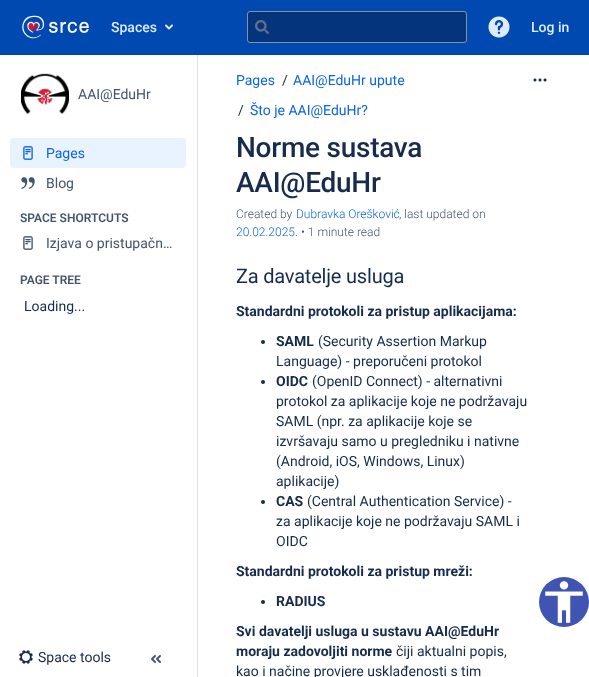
<!DOCTYPE html>
<meta charset="utf-8">
<style>body { margin: 0 } canvas { display: block }</style>
<canvas id="canvas" width="589" height="677"></canvas>
<script type="module">
  const canvas = document.getElementById("canvas");
  const g = canvas.getContext("2d");
  g.miterLimit = 4;
  g.fontKerning = "normal";
  function drawText(s, x, y, [font, color]) {
    g.font = font;
    g.fillStyle = color;
    g.fillText(s, x, y);
  }
  function fillBox(x, y, w, h, color) {
    g.fillStyle = color;
    g.fillRect(x, y, w, h);
  }
  function fillRounded(x, y, w, h, r, color) {
    g.fillStyle = color;
    g.beginPath();
    g.roundRect(x, y, w, h, r);
    g.fill();
  }
  async function drawPicture(src, x, y, w, h) {
    const img = new Image();
    img.src = src;
    await img.decode();
    g.drawImage(img, x, y, w, h);
  }

  const s1 = ["500 14px Roboto", "#DEEBFF"];
  const s2 = ["14px Roboto", "#44546F"];
  const s3 = ["14px Roboto", "#0C66E4"];
  const s4 = ["600 12px Roboto", "#44546F"];
  const s5 = ["14px Roboto", "#172B4D"];
  const s6 = ["500 28px Roboto", "#172B4D"];
  const s7 = ["300 12px Roboto", "#44546F"];
  const s8 = ["300 12px Roboto", "#0C66E4"];
  const s9 = ["20px Roboto", "#172B4D"];
  const s10 = ["bold 14px Roboto", "#172B4D"];

  fillBox(0, 0, 589, 677, "#FFFFFF");
  fillBox(0, 0, 589, 54, "#0049B0");
  fillBox(0, 54, 589, 1, "#0143A1");
  await drawPicture("pic1.png", 22, 15, 67, 24);
  drawText("Spaces", 111, 32, s1);
  await drawPicture("pic2.png", 165, 24, 8, 6);
  g.fillStyle = "#04347B";
  g.beginPath();
  g.roundRect(247.5, 11.5, 219, 31, 2.5);
  g.fill();
  g.strokeStyle = "#8590A2";
  g.stroke();
  await drawPicture("pic3.png", 255, 20, 14, 14);
  await drawPicture("pic4.png", 488, 16, 22, 22);
  drawText("Log in", 531, 32, s1);
  await drawPicture("pic5.png", 21, 73, 48, 42);
  drawText("AAI@EduHr", 78, 99, s2);
  fillRounded(10, 138, 176, 30, 3, "#E9F2FF");
  await drawPicture("pic6.png", 23, 146, 10, 14);
  drawText("Pages", 46, 158, s3);
  await drawPicture("pic7.png", 21, 177, 14, 12);
  drawText("Blog", 46, 188, s2);
  drawText("SPACE SHORTCUTS", 20, 222, s4);
  await drawPicture("pic8.png", 23, 236, 10, 14);
  drawText("Izjava o pristupačn…", 46, 248, s2);
  drawText("PAGE TREE", 20, 284, s4);
  drawText("Loading...", 24, 311, s5);
  fillBox(197, 55, 1, 622, "#DDE0E5");
  await drawPicture("pic9.png", 19, 650, 14, 14);
  drawText("Space tools", 38, 662, s5);
  await drawPicture("pic10.png", 151, 655, 10, 8);
  drawText("Pages", 236, 85, s3);
  drawText("/", 282, 85, s5);
  drawText("AAI@EduHr upute", 293, 85, s3);
  drawText("/", 238, 115, s5);
  drawText("Što je AAI@EduHr?", 250, 115, s3);
  g.letterSpacing = "-0.25px";
  drawText("Norme sustava", 236, 157, s6);
  drawText("AAI@EduHr", 236, 192, s6);
  await drawPicture("pic11.png", 533, 78, 14, 4);
  g.letterSpacing = "0px";
  drawText("Created by", 236, 218, s7);
  drawText("Dubravka Orešković", 296, 218, s8);
  drawText(", last updated on", 399, 218, s7);
  drawText("20.02.2025.", 236, 236, s8);
  drawText("• 1 minute read", 301, 236, s7);
  g.letterSpacing = "-0.2px";
  drawText("Za davatelje usluga", 236, 283, s9);
  g.letterSpacing = "0px";
  drawText("Standardni protokoli za pristup aplikacijama:", 236, 316, s10);
  g.beginPath();
  g.arc(263, 342, 2, 0, Math.PI * 2);
  g.fill();
  drawText("SAML", 276, 346, s10);
  drawText("(Security Assertion Markup", 318, 346, s5);
  drawText("Language) - preporučeni protokol", 276, 366, s5);
  g.beginPath();
  g.arc(263, 382, 2, 0, Math.PI * 2);
  g.fill();
  drawText("OIDC", 276, 386, s10);
  drawText("(OpenID Connect) - alternativni", 312, 386, s5);
  drawText("protokol za aplikacije koje ne podržavaju", 276, 406, s5);
  drawText("SAML (npr. za aplikacije koje se", 276, 426, s5);
  drawText("izvršavaju samo u pregledniku i nativne", 276, 446, s5);
  drawText("(Android, iOS, Windows, Linux)", 276, 466, s5);
  drawText("aplikacije)", 276, 486, s5);
  g.beginPath();
  g.arc(263, 502, 2, 0, Math.PI * 2);
  g.fill();
  drawText("CAS", 276, 506, s10);
  drawText("(Central Authentication Service) -", 307, 506, s5);
  drawText("za aplikacije koje ne podržavaju SAML i", 276, 526, s5);
  drawText("OIDC", 276, 546, s5);
  drawText("Standardni protokoli za pristup mreži:", 236, 576, s10);
  g.beginPath();
  g.arc(263, 602, 2, 0, Math.PI * 2);
  g.fill();
  drawText("RADIUS", 276, 606, s10);
  drawText("Svi davatelji usluga u sustavu AAI@EduHr", 236, 636, s10);
  drawText("moraju zadovoljiti norme", 236, 656, s10);
  drawText("čiji aktualni popis,", 396, 656, s5);
  drawText("kao i načine provjere usklađenosti s tim", 236, 676, s5);
  g.fillStyle = "#4054B2";
  g.beginPath();
  g.arc(564, 602, 25, 0, Math.PI * 2);
  g.fill();
  await drawPicture("pic12.png", 545, 581, 38, 42);
</script>
